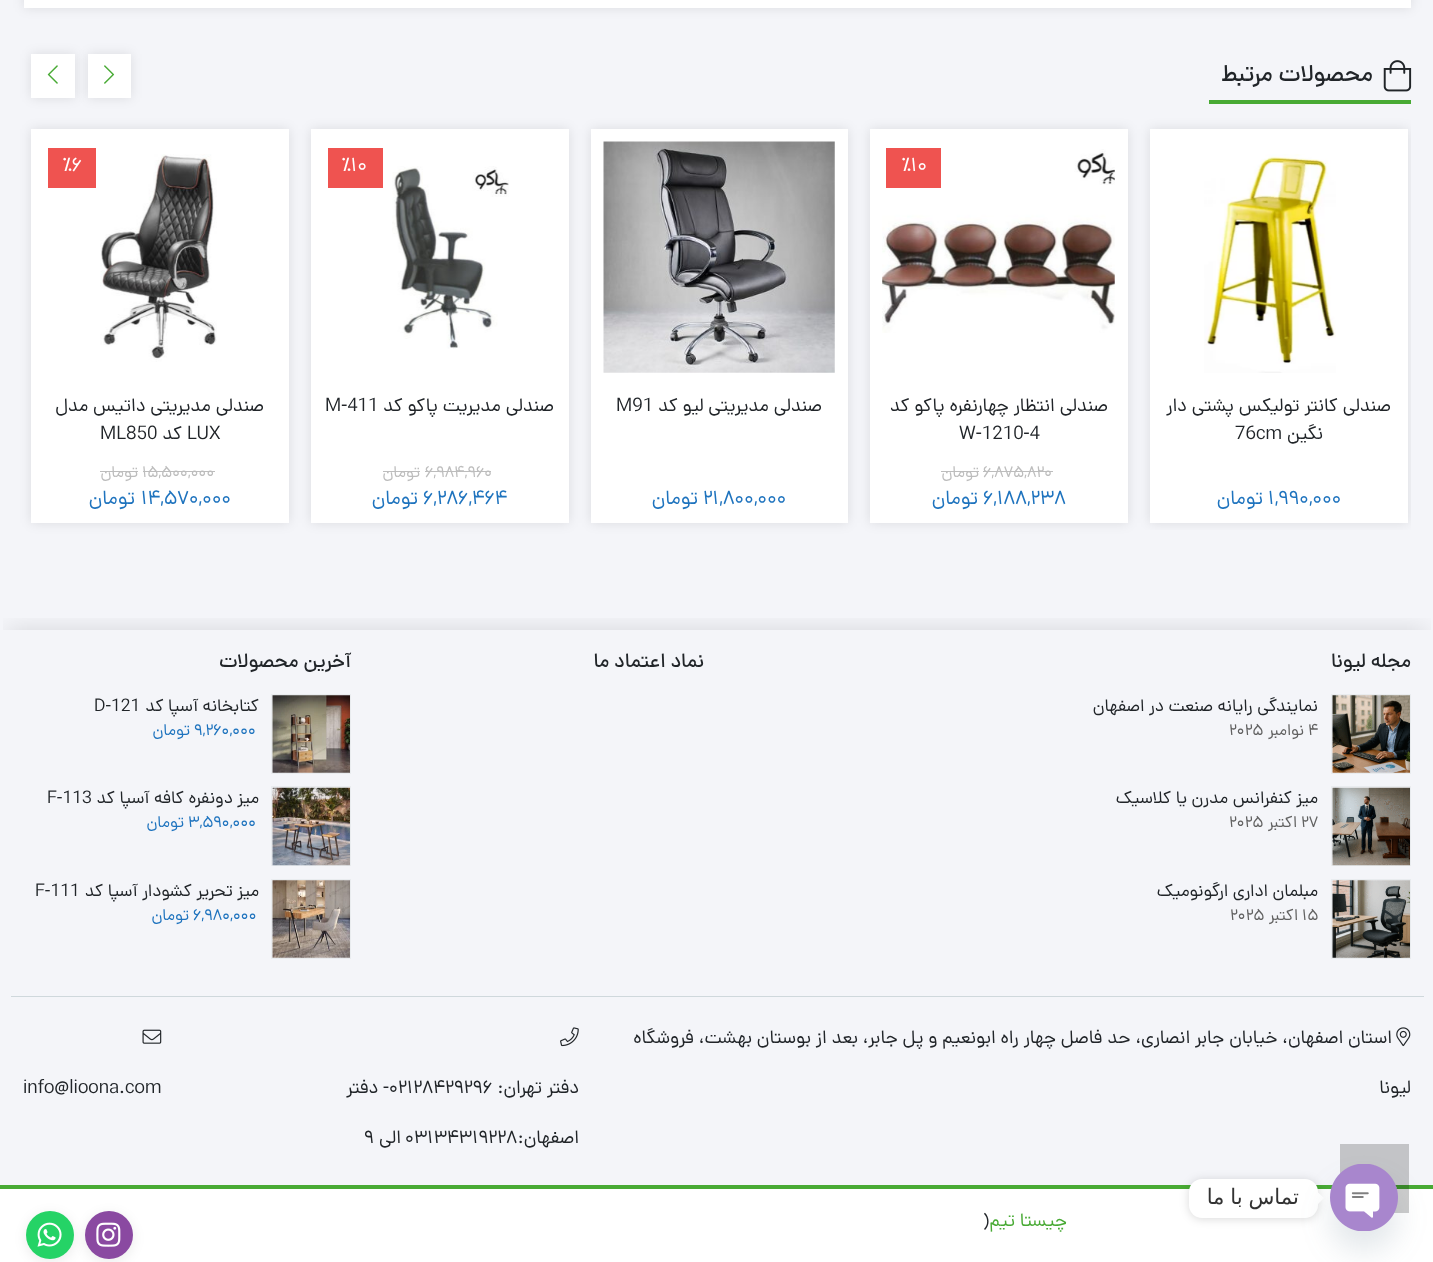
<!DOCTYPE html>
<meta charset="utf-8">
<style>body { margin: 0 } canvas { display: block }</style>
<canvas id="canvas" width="1433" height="1262"></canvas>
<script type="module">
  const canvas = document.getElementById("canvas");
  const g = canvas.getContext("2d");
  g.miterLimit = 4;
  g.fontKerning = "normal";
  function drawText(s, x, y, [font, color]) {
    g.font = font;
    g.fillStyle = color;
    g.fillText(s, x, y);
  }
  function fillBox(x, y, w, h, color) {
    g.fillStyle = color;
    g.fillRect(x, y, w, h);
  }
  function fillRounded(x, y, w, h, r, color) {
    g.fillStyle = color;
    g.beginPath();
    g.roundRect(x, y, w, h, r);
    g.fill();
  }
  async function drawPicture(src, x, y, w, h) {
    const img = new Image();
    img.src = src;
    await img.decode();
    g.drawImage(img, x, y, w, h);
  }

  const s1 = ["500 23.75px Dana", "#212529"];
  const s2 = ["18.75px Dana", "#212529"];
  const s3 = ["20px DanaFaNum", "#1E73BE"];
  const s4 = ["20px DanaFaNum", "#FFFFFF"];
  const s5 = ["16.25px DanaFaNum", "#BDBDBD"];
  const s6 = ["500 20px Dana", "#212529"];
  const s7 = ["17.5px Dana", "#212529"];
  const s8 = ["16.25px DanaFaNum", "#616161"];
  const s9 = ["16.25px DanaFaNum", "#1E73BE"];
  const s10 = ["18.75px DanaFaNum", "#212529"];
  const s11 = ["21.25px DejaVu Sans", "#333333"];
  const s12 = ["18.75px Dana", "#48AA34"];

  fillBox(0, 0, 1433, 1262, "#F4F5F9");
  g.fillStyle = "rgba(0, 0, 0, 0.1)";
  g.filter = "blur(6px)";
  g.beginPath();
  g.rect(24, -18, 1387, 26);
  g.fill();
  g.filter = "none";
  fillBox(24, 0, 1387, 8, "#FFFFFF");
  fillBox(1209, 100, 202, 4, "#48AA34");
  await drawPicture("pic1.png", 1383, 60, 29, 32);
  g.direction = "rtl";
  drawText("محصولات مرتبط", 1373, 81, s1);
  g.fillStyle = "rgba(0, 0, 0, 0.1)";
  g.filter = "blur(6px)";
  g.beginPath();
  g.rect(88, 54, 43, 44);
  g.fill();
  g.filter = "none";
  fillBox(88, 54, 43, 44, "#FFFFFF");
  await drawPicture("pic2.png", 104, 65, 11, 19);
  g.fillStyle = "rgba(0, 0, 0, 0.1)";
  g.filter = "blur(6px)";
  g.beginPath();
  g.rect(31, 54, 44, 44);
  g.fill();
  g.filter = "none";
  fillBox(31, 54, 44, 44, "#FFFFFF");
  await drawPicture("pic3.png", 47, 65, 11, 19);
  g.save();
  g.beginPath();
  g.rect(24, 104, 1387, 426);
  g.clip();
  g.fillStyle = "rgba(0, 0, 0, 0.1)";
  g.filter = "blur(6px)";
  g.beginPath();
  g.rect(1150, 129, 258, 394);
  g.fill();
  g.filter = "none";
  g.restore();
  fillBox(1150, 129, 258, 394, "#FFFFFF");
  await drawPicture("pic4.png", 1204, 154, 132, 219);
  drawText("صندلی کانتر تولیکس پشتی دار", 1391, 411, s2);
  drawText("نگین", 1323, 439, s2);
  g.direction = "ltr";
  drawText("76cm", 1235, 439, s2);
  drawText("1,990,000", 1268, 504, s3);
  g.direction = "rtl";
  drawText("تومان", 1263, 504, s3);
  g.fillStyle = "rgba(0, 0, 0, 0.1)";
  g.filter = "blur(6px)";
  g.beginPath();
  g.rect(870, 129, 258, 394);
  g.fill();
  g.filter = "none";
  fillBox(870, 129, 258, 394, "#FFFFFF");
  await drawPicture("pic5.png", 882, 149, 233, 184);
  fillBox(886, 148, 55, 40, "#EF5350");
  g.direction = "ltr";
  drawText("٪10", 902, 171, s4);
  g.direction = "rtl";
  drawText("صندلی انتظار چهارنفره پاکو کد", 1108, 411, s2);
  g.direction = "ltr";
  drawText("W-1210-4", 959, 439, s2);
  drawText("6,875,820", 983, 477, s5);
  fillBox(983, 471, 70, 1, "#BDBDBD");
  fillBox(941, 471, 38, 1, "#BDBDBD");
  g.direction = "rtl";
  drawText("تومان", 979, 477, s5);
  g.direction = "ltr";
  drawText("6,188,238", 983, 504, s3);
  g.direction = "rtl";
  drawText("تومان", 978, 504, s3);
  g.fillStyle = "rgba(0, 0, 0, 0.1)";
  g.filter = "blur(6px)";
  g.beginPath();
  g.rect(591, 129, 257, 394);
  g.fill();
  g.filter = "none";
  fillBox(591, 129, 257, 394, "#FFFFFF");
  await drawPicture("pic6.png", 603, 141, 232, 232);
  drawText("صندلی مدیریتی لیو کد", 822, 411, s2);
  g.direction = "ltr";
  drawText("M91", 616, 411, s2);
  drawText("21,800,000", 703, 504, s3);
  g.direction = "rtl";
  drawText("تومان", 698, 504, s3);
  g.fillStyle = "rgba(0, 0, 0, 0.1)";
  g.filter = "blur(6px)";
  g.beginPath();
  g.rect(311, 129, 258, 394);
  g.fill();
  g.filter = "none";
  fillBox(311, 129, 258, 394, "#FFFFFF");
  fillBox(328, 148, 55, 40, "#EF5350");
  g.direction = "ltr";
  drawText("٪10", 342, 171, s4);
  await drawPicture("pic7.png", 392, 166, 117, 183);
  g.direction = "rtl";
  drawText("صندلی مدیریت پاکو کد", 554, 411, s2);
  g.direction = "ltr";
  drawText("M-411", 325, 411, s2);
  drawText("6,984,960", 425, 477, s5);
  fillBox(425, 471, 66, 1, "#BDBDBD");
  g.direction = "rtl";
  drawText("تومان", 420, 477, s5);
  fillBox(383, 471, 37, 1, "#BDBDBD");
  g.direction = "ltr";
  drawText("6,286,464", 423, 504, s3);
  g.direction = "rtl";
  drawText("تومان", 418, 504, s3);
  g.fillStyle = "rgba(0, 0, 0, 0.1)";
  g.filter = "blur(6px)";
  g.beginPath();
  g.rect(31, 129, 258, 394);
  g.fill();
  g.filter = "none";
  fillBox(31, 129, 258, 394, "#FFFFFF");
  await drawPicture("pic8.png", 100, 154, 117, 208);
  fillBox(48, 148, 48, 40, "#EF5350");
  g.direction = "ltr";
  drawText("٪6", 63, 171, s4);
  g.direction = "rtl";
  drawText("صندلی مدیریتی داتیس مدل", 264, 411, s2);
  g.direction = "ltr";
  drawText("LUX", 187, 439, s2);
  g.direction = "rtl";
  drawText("کد", 182, 439, s2);
  g.direction = "ltr";
  drawText("ML850", 100, 439, s2);
  drawText("15,500,000", 142, 477, s5);
  fillBox(143, 471, 72, 1, "#BDBDBD");
  g.direction = "rtl";
  drawText("تومان", 138, 477, s5);
  fillBox(100, 471, 38, 1, "#BDBDBD");
  g.direction = "ltr";
  drawText("14,570,000", 141, 504, s3);
  g.direction = "rtl";
  drawText("تومان", 135, 504, s3);
  g.save();
  g.beginPath();
  g.rect(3, 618, 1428, 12);
  g.clip();
  g.fillStyle = "rgba(0, 0, 0, 0.12)";
  g.filter = "blur(12.5px)";
  g.beginPath();
  g.rect(8, 630, 1418, 540);
  g.fill();
  g.filter = "none";
  g.restore();
  fillBox(11, 996, 1413, 1, "#CFD8DC");
  drawText("مجله لیونا", 1411, 667, s6);
  g.strokeStyle = "#E9ECEF";
  g.strokeRect(1331.5, 694.5, 79, 79);
  await drawPicture("pic9.png", 1332, 695, 78, 78);
  drawText("نمایندگی رایانه صنعت در اصفهان", 1318, 711, s7);
  g.direction = "ltr";
  drawText("4", 1308, 735, s8);
  g.direction = "rtl";
  drawText("نوامبر", 1304, 735, s8);
  g.direction = "ltr";
  drawText("2025", 1229, 735, s8);
  g.strokeRect(1331.5, 786.5, 79, 79);
  await drawPicture("pic10.png", 1332, 787, 78, 79);
  g.direction = "rtl";
  drawText("میز کنفرانس مدرن یا کلاسیک", 1318, 803, s7);
  g.direction = "ltr";
  drawText("27", 1301, 827, s8);
  g.direction = "rtl";
  drawText("اکتبر", 1297, 827, s8);
  g.direction = "ltr";
  drawText("2025", 1229, 827, s8);
  g.strokeRect(1331.5, 879.5, 79, 79);
  await drawPicture("pic11.png", 1332, 880, 78, 78);
  g.direction = "rtl";
  drawText("مبلمان اداری ارگونومیک", 1318, 896, s7);
  g.direction = "ltr";
  drawText("15", 1302, 920, s8);
  g.direction = "rtl";
  drawText("اکتبر", 1298, 920, s8);
  g.direction = "ltr";
  drawText("2025", 1230, 920, s8);
  g.direction = "rtl";
  drawText("نماد اعتماد ما", 704, 667, s6);
  drawText("آخرین محصولات", 351, 667, s6);
  g.strokeRect(271.5, 694.5, 79, 79);
  await drawPicture("pic12.png", 272, 695, 78, 78);
  drawText("کتابخانه آسپا کد", 259, 711, s7);
  g.direction = "ltr";
  drawText("D-121", 94, 711, s7);
  drawText("9,260,000", 194, 735, s9);
  g.direction = "rtl";
  drawText("تومان", 190, 735, s9);
  g.strokeRect(271.5, 786.5, 79, 79);
  await drawPicture("pic13.png", 272, 787, 78, 79);
  drawText("میز دونفره کافه آسپا کد", 259, 803, s7);
  g.direction = "ltr";
  drawText("F-113", 47, 803, s7);
  drawText("3,590,000", 188, 827, s9);
  g.direction = "rtl";
  drawText("تومان", 184, 827, s9);
  g.strokeRect(271.5, 879.5, 79, 79);
  await drawPicture("pic14.png", 272, 880, 78, 78);
  drawText("میز تحریر کشودار آسپا کد", 259, 896, s7);
  g.direction = "ltr";
  drawText("F-111", 35, 896, s7);
  drawText("6,980,000", 193, 920, s9);
  g.direction = "rtl";
  drawText("تومان", 189, 920, s9);
  await drawPicture("pic15.png", 1396, 1027, 15, 20);
  drawText("استان اصفهان، خیابان جابر انصاری، حد فاصل چهار راه ابونعیم و پل جابر، بعد از بوستان بهشت، فروشگاه", 1392, 1043, s10);
  drawText("لیونا", 1411, 1093, s10);
  await drawPicture("pic16.png", 560, 1027, 19, 20);
  drawText("دفتر تهران:", 579, 1093, s10);
  g.direction = "ltr";
  drawText("02128429296", 389, 1093, s10);
  g.direction = "rtl";
  drawText("- دفتر", 389, 1093, s10);
  drawText("اصفهان:", 579, 1143, s10);
  g.direction = "ltr";
  drawText("03134319228", 405, 1143, s10);
  g.direction = "rtl";
  drawText("الی", 401, 1143, s10);
  g.direction = "ltr";
  drawText("9", 364, 1143, s10);
  await drawPicture("pic17.png", 142, 1029, 20, 15);
  drawText("info@lioona.com", 23, 1093, s10);
  fillBox(0, 1189, 1433, 73, "#FFFFFF");
  fillBox(0, 1185, 1433, 4, "#48AA34");
  fillBox(1340, 1144, 69, 69, "rgba(0, 0, 0, 0.2)");
  await drawPicture("pic18.png", 1374, 1165, 23, 23);
  g.fillStyle = "rgba(0, 0, 0, 0.15)";
  g.filter = "blur(5px)";
  g.beginPath();
  g.roundRect(1189, 1180, 129, 39, 13);
  g.fill();
  g.filter = "none";
  fillRounded(1189, 1179, 129, 39, 13, "#FFFFFF");
  g.beginPath();
  g.moveTo(1317.5, 1204.5);
  g.lineTo(1317.5, 1192);
  g.lineTo(1324, 1198);
  g.closePath();
  g.fill();
  g.fillStyle = "rgba(73, 104, 126, 0.16)";
  g.filter = "blur(15px)";
  g.beginPath();
  g.roundRect(1330, 1184, 68, 67, 33.5);
  g.fill();
  g.filter = "none";
  await drawPicture("pic19.png", 1330, 1164, 68, 67);
  g.wordSpacing = "-1px";
  g.direction = "rtl";
  drawText("تماس با ما", 1299, 1204, s11);
  g.wordSpacing = "0px";
  drawText("چیستا تیم", 1067, 1226, s12);
  g.direction = "ltr";
  drawText(")", 983, 1226, s2);
  g.fillStyle = "rgba(0, 0, 0, 0.07)";
  g.filter = "blur(6px)";
  g.beginPath();
  g.roundRect(25, 1213, 50, 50, 25);
  g.fill();
  g.filter = "none";
  g.fillStyle = "#25D366";
  g.beginPath();
  g.arc(50, 1235, 24, 0, Math.PI * 2);
  g.fill();
  g.fillStyle = "rgba(0, 0, 0, 0.07)";
  g.filter = "blur(6px)";
  g.beginPath();
  g.roundRect(84, 1213, 50, 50, 25);
  g.fill();
  g.filter = "none";
  g.fillStyle = "#8A49A1";
  g.beginPath();
  g.arc(109, 1235, 24, 0, Math.PI * 2);
  g.fill();
  await drawPicture("pic20.png", 96, 1222, 25, 25);
  await drawPicture("pic21.png", 37, 1222, 25, 25);
</script>
